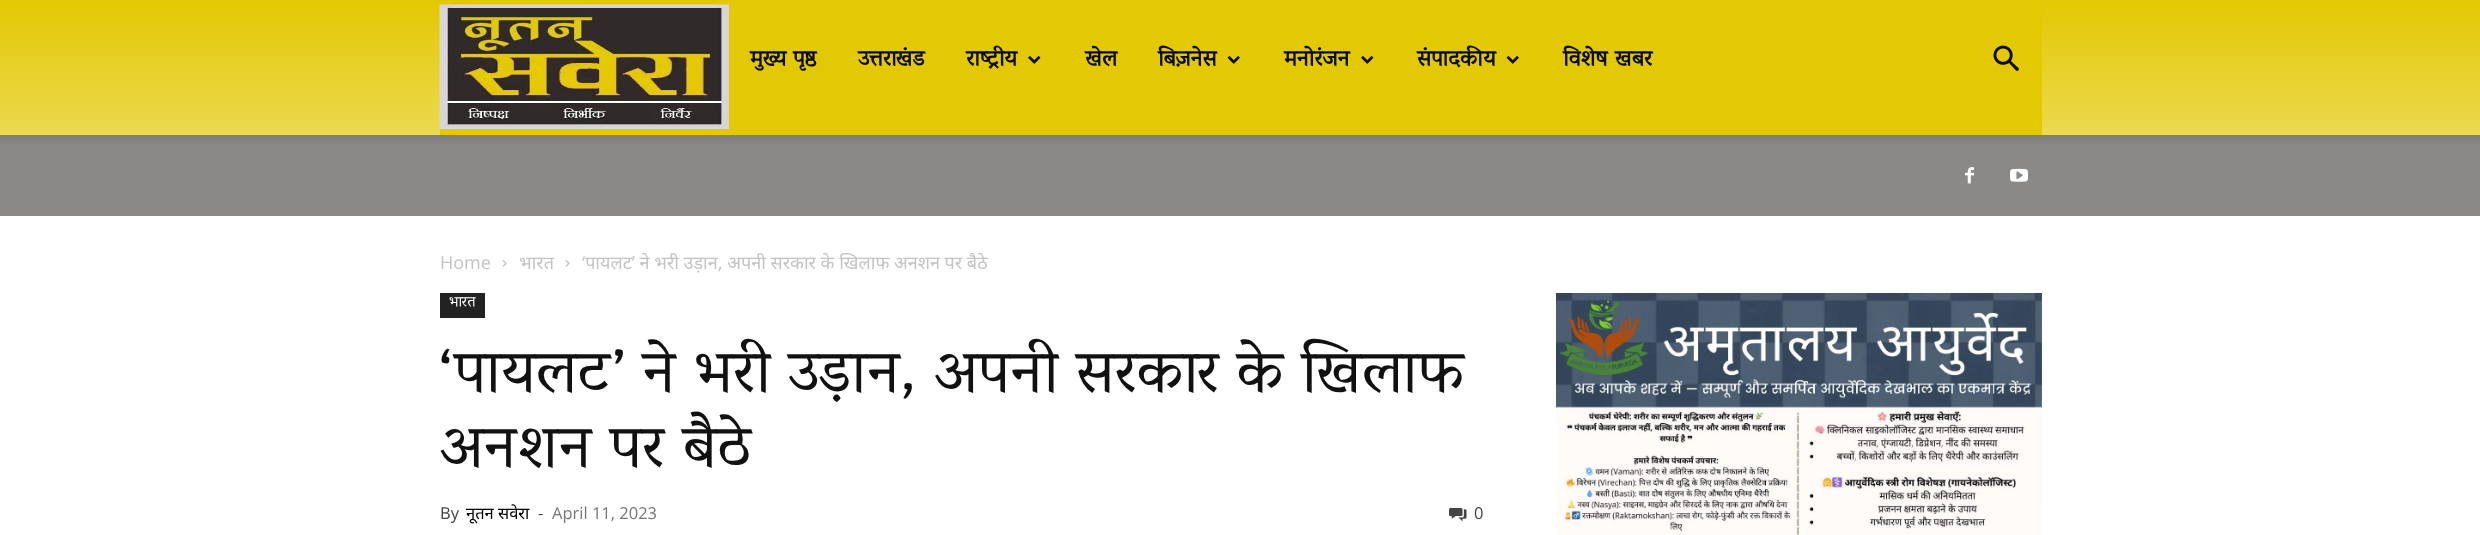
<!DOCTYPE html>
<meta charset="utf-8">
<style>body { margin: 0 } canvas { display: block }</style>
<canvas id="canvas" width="2480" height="535"></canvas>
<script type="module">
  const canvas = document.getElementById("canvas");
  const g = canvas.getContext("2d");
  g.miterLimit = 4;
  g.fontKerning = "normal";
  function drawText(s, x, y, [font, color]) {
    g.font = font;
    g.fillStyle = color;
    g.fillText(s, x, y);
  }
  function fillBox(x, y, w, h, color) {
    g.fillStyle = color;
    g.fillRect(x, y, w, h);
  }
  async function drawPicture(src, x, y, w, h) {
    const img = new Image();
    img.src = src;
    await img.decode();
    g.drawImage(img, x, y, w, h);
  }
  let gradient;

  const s1 = ["bold 22.5px Vesper Libre", "#0A0A0A"];
  const s2 = ["18px Open Sans", "#C3C3C3"];
  const s3 = ["18px Noto Sans", "#C3C3C3"];
  const s4 = ["15px Vesper Libre", "#FFFFFF"];
  const s5 = ["61.5px Vesper Libre", "#111111"];
  const s6 = ["16.5px Open Sans", "#444444"];
  const s7 = ["16.5px Noto Sans", "#000000"];
  const s8 = ["16.5px Open Sans", "#767676"];

  fillBox(0, 0, 2480, 535, "#FFFFFF");
  gradient = g.createLinearGradient(0, 0, 0, 135);
  gradient.addColorStop(0, "#E3C803");
  gradient.addColorStop(1, "#ECD94F");
  g.fillStyle = gradient;
  g.fillRect(0, 0, 2480, 135);
  fillBox(440, 4, 1602, 131, "#E3C903");
  await drawPicture("pic1.png", 439, 4, 290, 125);
  drawText("मुख्य", 750, 65, s1);
  drawText("पृष्ठ", 793, 65, s1);
  drawText("उत्तराखंड", 858, 65, s1);
  drawText("राष्ट्रीय", 966, 65, s1);
  await drawPicture("pic2.png", 1028, 56, 13, 8);
  drawText("खेल", 1085, 65, s1);
  drawText("बिज़नेस", 1158, 65, s1);
  await drawPicture("pic3.png", 1227, 56, 13, 8);
  drawText("मनोरंजन", 1284, 65, s1);
  await drawPicture("pic2.png", 1361, 56, 13, 8);
  drawText("संपादकीय", 1417, 65, s1);
  await drawPicture("pic3.png", 1506, 56, 13, 8);
  g.wordSpacing = "1px";
  drawText("विशेष खबर", 1563, 65, s1);
  await drawPicture("pic4.png", 1993, 45, 26, 26);
  fillBox(0, 135, 2480, 81, "#8B8888");
  await drawPicture("pic5.png", 0, 135, 2480, 9);
  await drawPicture("pic6.png", 1965, 167, 9, 17);
  await drawPicture("pic7.png", 2010, 168, 18, 14);
  g.wordSpacing = "0px";
  drawText("Home", 440, 269, s2);
  await drawPicture("pic8.png", 502, 260, 5, 7);
  drawText("भारत", 519, 269, s3);
  await drawPicture("pic8.png", 565, 260, 5, 7);
  drawText("‘पायलट’ ने भरी उड़ान, अपनी सरकार के खिलाफ अनशन पर बैठे", 582, 269, s3);
  fillBox(440, 293, 45, 25, "#222222");
  drawText("भारत", 449, 306, s4);
  drawText("‘पायलट’ ने भरी उड़ान, अपनी सरकार के खिलाफ", 440, 390, s5);
  drawText("अनशन पर बैठे", 440, 465, s5);
  drawText("By", 440, 519, s6);
  drawText("नूतन सवेरा", 466, 519, s7);
  drawText("-", 538, 519, s6);
  drawText("April 11, 2023", 552, 519, s8);
  await drawPicture("pic9.png", 1449, 507, 18, 15);
  drawText("0", 1474, 519, s6);
  await drawPicture("pic10.png", 1556, 293, 486, 242);
</script>
